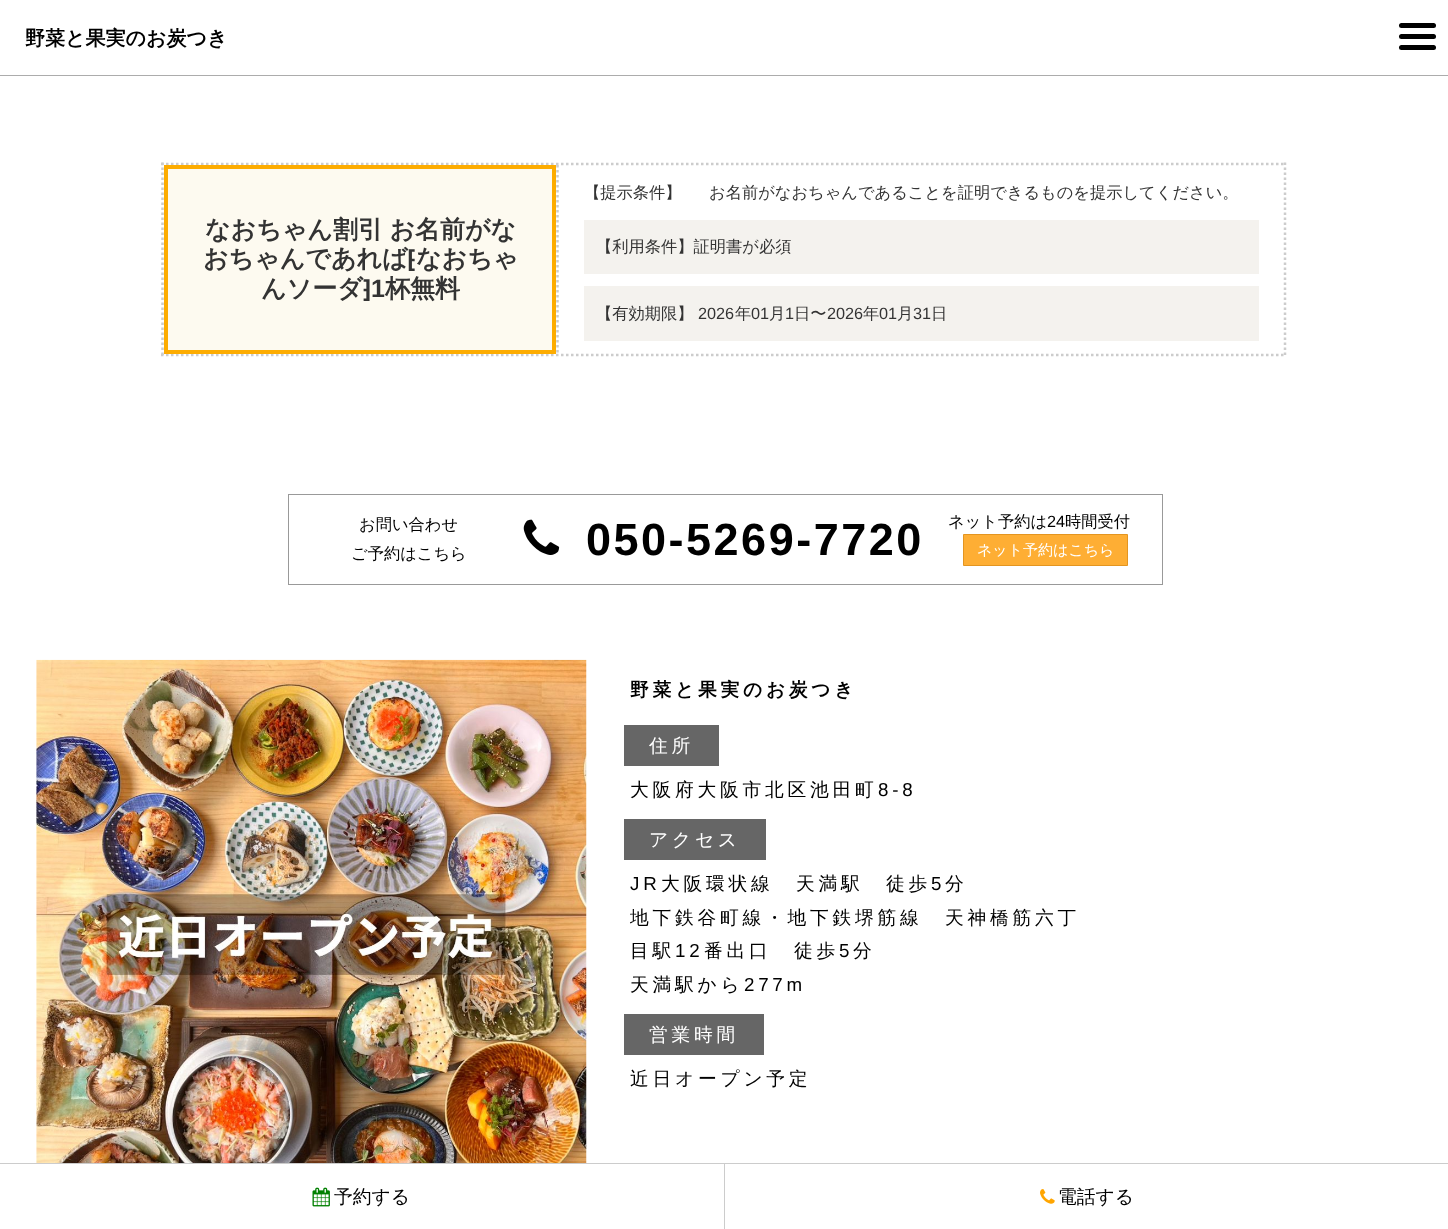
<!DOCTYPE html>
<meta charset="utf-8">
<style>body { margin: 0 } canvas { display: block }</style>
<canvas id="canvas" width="1448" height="1229"></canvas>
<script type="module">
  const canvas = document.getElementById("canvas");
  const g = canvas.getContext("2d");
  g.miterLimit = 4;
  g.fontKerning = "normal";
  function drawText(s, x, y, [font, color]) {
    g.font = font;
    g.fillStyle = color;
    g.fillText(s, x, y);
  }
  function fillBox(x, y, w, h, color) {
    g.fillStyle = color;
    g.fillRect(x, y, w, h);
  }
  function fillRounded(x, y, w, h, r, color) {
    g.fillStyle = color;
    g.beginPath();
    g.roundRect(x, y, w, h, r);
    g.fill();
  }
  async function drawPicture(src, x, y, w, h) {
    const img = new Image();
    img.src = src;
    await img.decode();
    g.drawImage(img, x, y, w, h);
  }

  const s1 = ["bold 20px WenQuanYi Zen Hei", "#000000"];
  const s2 = ["bold 25px WenQuanYi Zen Hei", "#333333"];
  const s3 = ["bold 25px Noto Sans", "#333333"];
  const s4 = ["bold 25px Liberation Sans", "#333333"];
  const s5 = ["500 16.25px WenQuanYi Zen Hei", "#333333"];
  const s6 = ["16.25px Liberation Sans", "#333333"];
  const s7 = ["500 16.25px WenQuanYi Zen Hei", "#000000"];
  const s8 = ["bold 45px Liberation Sans", "#000000"];
  const s9 = ["16.25px Liberation Sans", "#000000"];
  const s10 = ["500 15px WenQuanYi Zen Hei", "#FFFFFF"];
  const s11 = ["bold 18.75px WenQuanYi Zen Hei", "#000000"];
  const s12 = ["500 18.75px WenQuanYi Zen Hei", "#FFFFFF"];
  const s13 = ["500 18.75px WenQuanYi Zen Hei", "#000000"];
  const s14 = ["18.75px Liberation Sans", "#000000"];

  fillBox(0, 0, 1448, 1229, "#FFFFFF");
  fillBox(0, 75, 1448, 1, "#ACACAC");
  drawText("野菜と果実のお炭つき", 25, 45, s1);
  fillRounded(1399, 23, 37, 5, 2.5, "#000000");
  fillRounded(1399, 34, 37, 5, 2.5, "#000000");
  fillRounded(1399, 45, 37, 5, 2.5, "#000000");
  g.beginPath();
  g.moveTo(161, 164);
  g.lineTo(1286, 164);
  g.strokeStyle = "#CCCCCC";
  g.lineWidth = 2.5;
  g.setLineDash([2.5, 2.5]);
  g.stroke();
  g.beginPath();
  g.moveTo(1285, 162.5);
  g.lineTo(1285, 356);
  g.stroke();
  g.beginPath();
  g.moveTo(161, 355);
  g.lineTo(1286, 355);
  g.stroke();
  g.beginPath();
  g.moveTo(162.5, 162.5);
  g.lineTo(162.5, 356);
  g.stroke();
  g.fillStyle = "#FDFAF0";
  g.beginPath();
  g.rect(166, 167, 388, 185);
  g.fill();
  g.strokeStyle = "#FDAC00";
  g.lineWidth = 4;
  g.setLineDash([]);
  g.stroke();
  g.wordSpacing = "-1px";
  drawText("なおちゃん割引 お名前がな", 205, 238, s2);
  g.wordSpacing = "0px";
  drawText("おちゃんであれば", 203, 267, s2);
  drawText("⁅", 407, 267, s3);
  drawText("なおちゃ", 416, 267, s2);
  drawText("んソーダ", 261, 297, s2);
  drawText("⁆", 363, 297, s3);
  drawText("1", 371, 297, s4);
  drawText("杯無料", 385, 297, s2);
  g.beginPath();
  g.moveTo(557.5, 165);
  g.lineTo(557.5, 354);
  g.strokeStyle = "#CCCCCC";
  g.lineWidth = 2.5;
  g.setLineDash([2.5, 2.5]);
  g.stroke();
  drawText("【提示条件】", 584, 198, s5);
  drawText("お名前がなおちゃんであることを証明できるものを提示してください。", 709, 198, s5);
  fillBox(584, 220, 675, 54, "#F4F2EE");
  drawText("【利用条件】証明書が必須", 596, 252, s5);
  fillBox(584, 286, 675, 55, "#F4F2EE");
  drawText("【有効期限】", 596, 319, s5);
  drawText("2026", 698, 319, s6);
  drawText("年", 735, 319, s5);
  drawText("01", 751, 319, s6);
  drawText("月", 769, 319, s5);
  drawText("1", 785, 319, s6);
  drawText("日〜", 794, 319, s5);
  drawText("2026", 827, 319, s6);
  drawText("年", 863, 319, s5);
  drawText("01", 879, 319, s6);
  drawText("月", 897, 319, s5);
  drawText("31", 913, 319, s6);
  drawText("日", 931, 319, s5);
  g.strokeStyle = "#999999";
  g.lineWidth = 1;
  g.setLineDash([]);
  g.strokeRect(288.5, 494.5, 874, 90);
  drawText("お問い合わせ", 359, 530, s7);
  drawText("ご予約はこちら", 351, 559, s7);
  await drawPicture("pic1.png", 523, 519, 37, 36);
  g.letterSpacing = "2.5px";
  drawText("050-5269-7720", 586, 555, s8);
  g.letterSpacing = "0px";
  drawText("ネット予約は", 948, 527, s7);
  drawText("24", 1047, 527, s9);
  drawText("時間受付", 1065, 527, s7);
  g.fillStyle = "#FEAE34";
  g.beginPath();
  g.rect(963.5, 534.5, 164, 31);
  g.fill();
  g.strokeStyle = "#E39521";
  g.stroke();
  drawText("ネット予約はこちら", 977, 555, s10);
  await drawPicture("pic2.png", 36, 659, 551, 504);
  g.letterSpacing = "3.75px";
  drawText("野菜と果実のお炭つき", 630, 696, s11);
  fillBox(624, 725, 95, 41, "#666666");
  drawText("住所", 649, 752, s12);
  drawText("大阪府大阪市北区池田町", 630, 796, s13);
  drawText("8-8", 878, 796, s14);
  fillBox(624, 819, 142, 41, "#666666");
  drawText("アクセス", 649, 846, s12);
  drawText("JR", 630, 890, s14);
  drawText("大阪環状線　天満駅　徒歩", 661, 890, s13);
  drawText("5", 931, 890, s14);
  drawText("分", 945, 890, s13);
  drawText("地下鉄谷町線・地下鉄堺筋線　天神橋筋六丁", 630, 924, s13);
  drawText("目駅", 630, 957, s13);
  drawText("12", 675, 957, s14);
  drawText("番出口　徒歩", 704, 957, s13);
  drawText("5", 839, 957, s14);
  drawText("分", 853, 957, s13);
  drawText("天満駅から", 630, 991, s13);
  drawText("277m", 744, 991, s14);
  fillBox(624, 1014, 140, 41, "#666666");
  drawText("営業時間", 649, 1041, s12);
  drawText("近日オープン予定", 630, 1085, s13);
  fillBox(0, 1163, 1448, 1, "#CCCCCC");
  fillBox(724, 1164, 1, 65, "#CCCCCC");
  await drawPicture("pic3.png", 312, 1187, 18, 20);
  g.letterSpacing = "0px";
  drawText("予約する", 334, 1203, s13);
  await drawPicture("pic4.png", 1040, 1189, 15, 15);
  drawText("電話する", 1058, 1203, s13);
</script>
